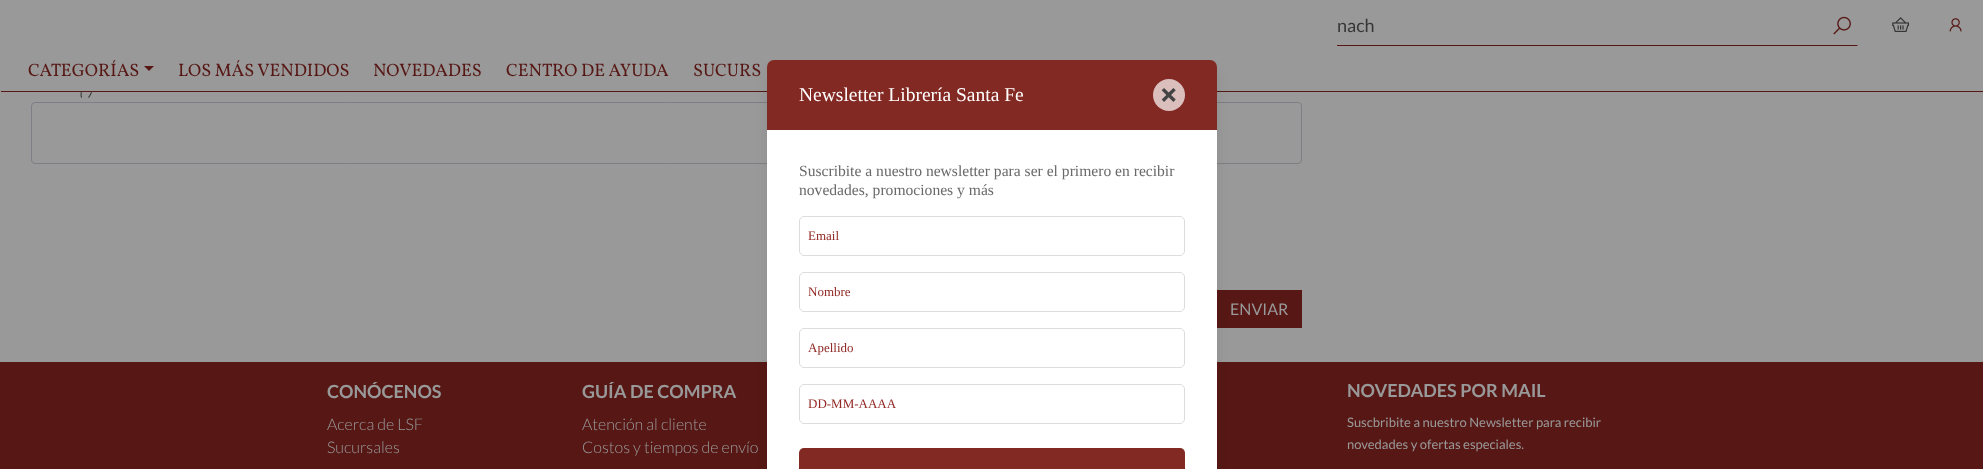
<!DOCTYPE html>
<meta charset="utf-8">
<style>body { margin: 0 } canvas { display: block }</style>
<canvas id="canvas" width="1983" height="469"></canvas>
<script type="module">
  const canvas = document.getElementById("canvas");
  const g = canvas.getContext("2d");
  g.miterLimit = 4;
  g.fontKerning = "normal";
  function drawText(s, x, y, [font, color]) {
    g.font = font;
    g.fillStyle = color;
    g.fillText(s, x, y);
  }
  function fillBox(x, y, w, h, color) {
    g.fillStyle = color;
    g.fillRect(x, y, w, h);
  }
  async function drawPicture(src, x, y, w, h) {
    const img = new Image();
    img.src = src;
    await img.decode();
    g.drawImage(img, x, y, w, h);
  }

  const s1 = ["italic 13px Lato", "#363636"];
  const s2 = ["18px Lato", "#363636"];
  const s3 = ["18px Vollkorn", "#571815"];
  const s4 = ["16px Lato", "#999999"];
  const s5 = ["bold 18px Lato", "#999999"];
  const s6 = ["300 16px Lato", "#999999"];
  const s7 = ["13px Lato", "#999999"];
  const s8 = ["19.5px Liberation Serif", "#FFFFFF"];
  const s9 = ["bold 29px DejaVu Sans Mono", "#444444"];
  const s10 = ["15.6px Liberation Serif", "#696969"];
  const s11 = ["13px Liberation Serif", "#912823"];

  fillBox(0, 0, 1983, 469, "#999999");
  g.fillStyle = "#571815";
  g.filter = "blur(0.5px)";
  g.beginPath();
  g.rect(1, 1, 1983, 91);
  g.fill();
  g.filter = "none";
  drawText("(*)", 79, 96, s1);
  fillBox(0, 0, 1983, 91, "#999999");
  fillBox(1337, 45, 490, 1, "#571815");
  drawText("nach", 1337, 32, s2);
  g.fillStyle = "#571815";
  g.beginPath();
  g.moveTo(1858, 46);
  g.lineTo(1826, 46);
  g.lineTo(1827, 45);
  g.lineTo(1857, 45);
  g.closePath();
  g.fill();
  await drawPicture("pic1.png", 1833, 16, 18, 19);
  await drawPicture("pic2.png", 1892, 17, 17, 15);
  await drawPicture("pic3.png", 1949, 18, 13, 14);
  drawText("CATEGORÍAS", 28, 76, s3);
  g.beginPath();
  g.moveTo(144, 66);
  g.lineTo(154, 66);
  g.lineTo(149, 71);
  g.closePath();
  g.fill();
  drawText("LOS MÁS VENDIDOS", 178, 76, s3);
  drawText("NOVEDADES", 373, 76, s3);
  drawText("CENTRO DE AYUDA", 506, 76, s3);
  drawText("SUCURS", 693, 76, s3);
  g.beginPath();
  g.roundRect(31.5, 102.5, 1270, 61, 3.5);
  g.strokeStyle = "#7C7F83";
  g.stroke();
  fillBox(1217, 290, 85, 38, "#571815");
  drawText("ENVIAR", 1230, 315, s4);
  fillBox(0, 362, 1983, 107, "#571815");
  drawText("CONÓCENOS", 327, 398, s5);
  drawText("Acerca de LSF", 327, 430, s6);
  drawText("Sucursales", 327, 453, s6);
  drawText("GUÍA DE COMPRA", 582, 398, s5);
  drawText("Atención al cliente", 582, 430, s6);
  drawText("Costos y tiempos de envío", 582, 453, s6);
  drawText("NOVEDADES POR MAIL", 1347, 397, s5);
  drawText("Suscbribite a nuestro Newsletter para recibir", 1347, 427, s7);
  drawText("novedades y ofertas especiales.", 1347, 449, s7);
  g.fillStyle = "rgba(0, 0, 0, 0.1)";
  g.filter = "blur(7.5px)";
  g.beginPath();
  g.roundRect(770, 73, 444, 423, 4);
  g.fill();
  g.filter = "none";
  g.fillStyle = "#832923";
  g.beginPath();
  g.roundRect(767, 60, 450, 70, [7, 7, 0, 0]);
  g.fill();
  drawText("Newsletter Librería Santa Fe", 799, 101, s8);
  g.fillStyle = "#DABFBD";
  g.beginPath();
  g.arc(1169, 95, 16, 0, Math.PI * 2);
  g.fill();
  drawText("×", 1160, 104, s9);
  fillBox(767, 130, 450, 339, "#FFFFFF");
  drawText("Suscribite a nuestro newsletter para ser el primero en recibir", 799, 176, s10);
  drawText("novedades, promociones y más", 799, 195, s10);
  g.beginPath();
  g.roundRect(799.5, 216.5, 385, 39, 4.5);
  g.strokeStyle = "#DDDDDD";
  g.stroke();
  drawText("Email", 808, 240, s11);
  g.beginPath();
  g.roundRect(799.5, 272.5, 385, 39, 4.5);
  g.stroke();
  drawText("Nombre", 808, 296, s11);
  g.beginPath();
  g.roundRect(799.5, 328.5, 385, 39, 4.5);
  g.stroke();
  drawText("Apellido", 808, 352, s11);
  g.beginPath();
  g.roundRect(799.5, 384.5, 385, 39, 4.5);
  g.stroke();
  drawText("DD-MM-AAAA", 808, 408, s11);
  g.fillStyle = "#832923";
  g.beginPath();
  g.roundRect(799, 448, 386, 21, [5, 5, 0, 0]);
  g.fill();
</script>
